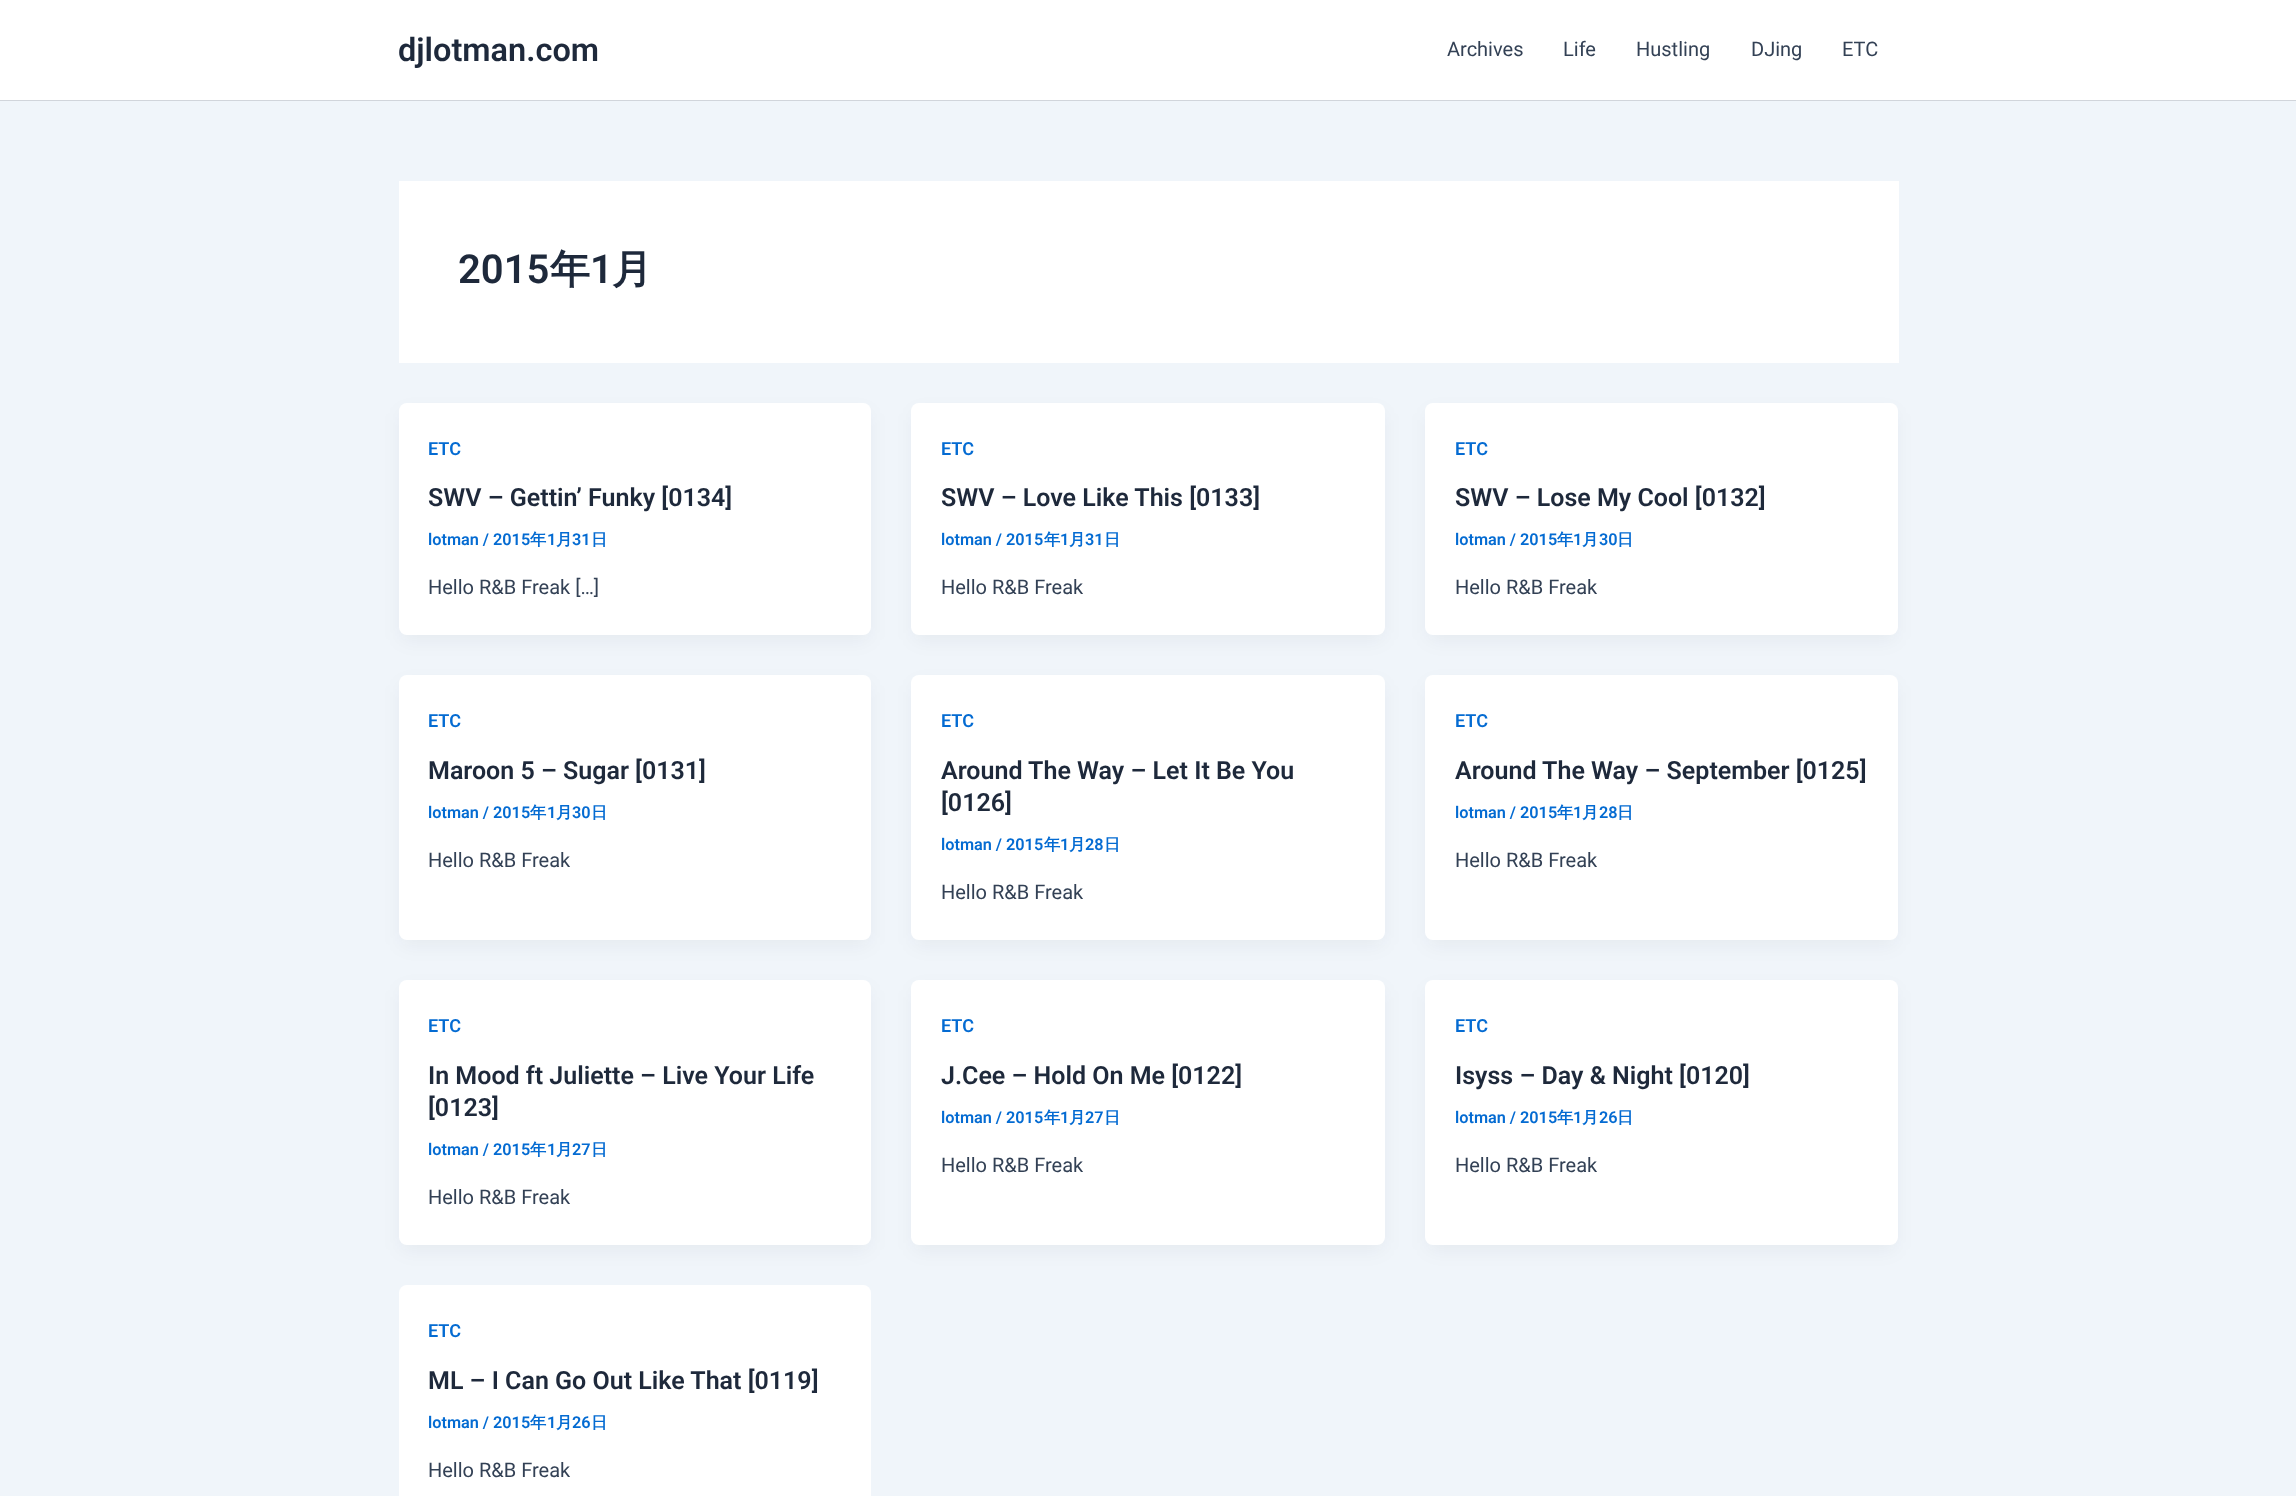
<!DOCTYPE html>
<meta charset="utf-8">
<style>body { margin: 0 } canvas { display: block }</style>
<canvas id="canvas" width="2296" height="1496"></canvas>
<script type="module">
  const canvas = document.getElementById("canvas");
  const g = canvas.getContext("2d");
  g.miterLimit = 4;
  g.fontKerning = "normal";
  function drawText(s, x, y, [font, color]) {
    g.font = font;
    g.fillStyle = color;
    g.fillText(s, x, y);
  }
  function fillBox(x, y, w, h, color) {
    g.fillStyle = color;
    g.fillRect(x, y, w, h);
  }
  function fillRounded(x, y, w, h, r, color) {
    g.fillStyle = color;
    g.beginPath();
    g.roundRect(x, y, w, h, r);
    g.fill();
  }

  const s1 = ["600 32.5px Roboto", "#1E293B"];
  const s2 = ["20px Roboto", "#334155"];
  const s3 = ["600 40px Roboto", "#1E293B"];
  const s4 = ["bold 40px WenQuanYi Zen Hei", "#1E293B"];
  const s5 = ["600 18px Roboto", "#046BD2"];
  const s6 = ["600 25px Roboto", "#1E293B"];
  const s7 = ["600 16.25px Roboto", "#046BD2"];
  const s8 = ["bold 16.25px WenQuanYi Zen Hei", "#046BD2"];

  fillBox(0, 0, 2296, 1496, "#F0F5FA");
  fillBox(0, 0, 2296, 100, "#FFFFFF");
  fillBox(0, 100, 2296, 1, "#D1D5DB");
  drawText("djlotman.com", 398, 61, s1);
  drawText("Archives", 1447, 56, s2);
  drawText("Life", 1563, 56, s2);
  drawText("Hustling", 1636, 56, s2);
  drawText("DJing", 1751, 56, s2);
  drawText("ETC", 1842, 56, s2);
  fillBox(399, 181, 1500, 182, "#FFFFFF");
  drawText("2015", 458, 283, s3);
  drawText("年", 550, 283, s4);
  drawText("1", 590, 283, s3);
  drawText("月", 612, 283, s4);
  g.fillStyle = "rgba(16, 24, 40, 0.05)";
  g.filter = "blur(9.5px)";
  g.beginPath();
  g.roundRect(401, 413, 468, 227, 5);
  g.fill();
  g.filter = "none";
  fillRounded(399, 403, 472, 232, 8, "#FFFFFF");
  drawText("ETC", 428, 455, s5);
  drawText("SWV – Gettin’ Funky [0134]", 428, 506, s6);
  drawText("lotman / 2015", 428, 545, s7);
  drawText("年", 530, 545, s8);
  drawText("1", 547, 545, s7);
  drawText("月", 556, 545, s8);
  drawText("31", 572, 545, s7);
  drawText("日", 591, 545, s8);
  drawText("Hello R&B Freak […]", 428, 594, s2);
  g.fillStyle = "rgba(16, 24, 40, 0.05)";
  g.filter = "blur(9.5px)";
  g.beginPath();
  g.roundRect(914, 413, 469, 227, 5);
  g.fill();
  g.filter = "none";
  fillRounded(911, 403, 474, 232, 8, "#FFFFFF");
  drawText("ETC", 941, 455, s5);
  drawText("SWV – Love Like This [0133]", 941, 506, s6);
  drawText("lotman / 2015", 941, 545, s7);
  drawText("年", 1044, 545, s8);
  drawText("1", 1060, 545, s7);
  drawText("月", 1069, 545, s8);
  drawText("31", 1085, 545, s7);
  drawText("日", 1104, 545, s8);
  drawText("Hello R&B Freak", 941, 594, s2);
  g.fillStyle = "rgba(16, 24, 40, 0.05)";
  g.filter = "blur(9.5px)";
  g.beginPath();
  g.roundRect(1428, 413, 467, 227, 5);
  g.fill();
  g.filter = "none";
  fillRounded(1425, 403, 473, 232, 8, "#FFFFFF");
  drawText("ETC", 1455, 455, s5);
  drawText("SWV – Lose My Cool [0132]", 1455, 506, s6);
  drawText("lotman / 2015", 1455, 545, s7);
  drawText("年", 1557, 545, s8);
  drawText("1", 1573, 545, s7);
  drawText("月", 1582, 545, s8);
  drawText("30", 1599, 545, s7);
  drawText("日", 1617, 545, s8);
  drawText("Hello R&B Freak", 1455, 594, s2);
  g.fillStyle = "rgba(16, 24, 40, 0.05)";
  g.filter = "blur(9.5px)";
  g.beginPath();
  g.roundRect(401, 685, 468, 260, 5);
  g.fill();
  g.filter = "none";
  fillRounded(399, 675, 472, 265, 8, "#FFFFFF");
  drawText("ETC", 428, 727, s5);
  drawText("Maroon 5 – Sugar [0131]", 428, 779, s6);
  drawText("lotman / 2015", 428, 818, s7);
  drawText("年", 530, 818, s8);
  drawText("1", 547, 818, s7);
  drawText("月", 556, 818, s8);
  drawText("30", 572, 818, s7);
  drawText("日", 591, 818, s8);
  drawText("Hello R&B Freak", 428, 867, s2);
  g.fillStyle = "rgba(16, 24, 40, 0.05)";
  g.filter = "blur(9.5px)";
  g.beginPath();
  g.roundRect(914, 685, 469, 260, 5);
  g.fill();
  g.filter = "none";
  fillRounded(911, 675, 474, 265, 8, "#FFFFFF");
  drawText("ETC", 941, 727, s5);
  drawText("Around The Way – Let It Be You", 941, 779, s6);
  drawText("[0126]", 941, 811, s6);
  drawText("lotman / 2015", 941, 850, s7);
  drawText("年", 1044, 850, s8);
  drawText("1", 1060, 850, s7);
  drawText("月", 1069, 850, s8);
  drawText("28", 1085, 850, s7);
  drawText("日", 1104, 850, s8);
  drawText("Hello R&B Freak", 941, 899, s2);
  g.fillStyle = "rgba(16, 24, 40, 0.05)";
  g.filter = "blur(9.5px)";
  g.beginPath();
  g.roundRect(1428, 685, 467, 260, 5);
  g.fill();
  g.filter = "none";
  fillRounded(1425, 675, 473, 265, 8, "#FFFFFF");
  drawText("ETC", 1455, 727, s5);
  drawText("Around The Way – September [0125]", 1455, 779, s6);
  drawText("lotman / 2015", 1455, 818, s7);
  drawText("年", 1557, 818, s8);
  drawText("1", 1573, 818, s7);
  drawText("月", 1582, 818, s8);
  drawText("28", 1599, 818, s7);
  drawText("日", 1617, 818, s8);
  drawText("Hello R&B Freak", 1455, 867, s2);
  g.fillStyle = "rgba(16, 24, 40, 0.05)";
  g.filter = "blur(9.5px)";
  g.beginPath();
  g.roundRect(401, 990, 468, 260, 5);
  g.fill();
  g.filter = "none";
  fillRounded(399, 980, 472, 265, 8, "#FFFFFF");
  drawText("ETC", 428, 1032, s5);
  drawText("In Mood ft Juliette – Live Your Life", 428, 1084, s6);
  drawText("[0123]", 428, 1116, s6);
  drawText("lotman / 2015", 428, 1155, s7);
  drawText("年", 530, 1155, s8);
  drawText("1", 547, 1155, s7);
  drawText("月", 556, 1155, s8);
  drawText("27", 572, 1155, s7);
  drawText("日", 591, 1155, s8);
  drawText("Hello R&B Freak", 428, 1204, s2);
  g.fillStyle = "rgba(16, 24, 40, 0.05)";
  g.filter = "blur(9.5px)";
  g.beginPath();
  g.roundRect(914, 990, 469, 260, 5);
  g.fill();
  g.filter = "none";
  fillRounded(911, 980, 474, 265, 8, "#FFFFFF");
  drawText("ETC", 941, 1032, s5);
  drawText("J.Cee – Hold On Me [0122]", 941, 1084, s6);
  drawText("lotman / 2015", 941, 1123, s7);
  drawText("年", 1044, 1123, s8);
  drawText("1", 1060, 1123, s7);
  drawText("月", 1069, 1123, s8);
  drawText("27", 1085, 1123, s7);
  drawText("日", 1104, 1123, s8);
  drawText("Hello R&B Freak", 941, 1172, s2);
  g.fillStyle = "rgba(16, 24, 40, 0.05)";
  g.filter = "blur(9.5px)";
  g.beginPath();
  g.roundRect(1428, 990, 467, 260, 5);
  g.fill();
  g.filter = "none";
  fillRounded(1425, 980, 473, 265, 8, "#FFFFFF");
  drawText("ETC", 1455, 1032, s5);
  drawText("Isyss – Day & Night [0120]", 1455, 1084, s6);
  drawText("lotman / 2015", 1455, 1123, s7);
  drawText("年", 1557, 1123, s8);
  drawText("1", 1573, 1123, s7);
  drawText("月", 1582, 1123, s8);
  drawText("26", 1599, 1123, s7);
  drawText("日", 1617, 1123, s8);
  drawText("Hello R&B Freak", 1455, 1172, s2);
  fillRounded(399, 1285, 472, 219, 8, "#FFFFFF");
  drawText("ETC", 428, 1337, s5);
  drawText("ML – I Can Go Out Like That [0119]", 428, 1389, s6);
  drawText("lotman / 2015", 428, 1428, s7);
  drawText("年", 530, 1428, s8);
  drawText("1", 547, 1428, s7);
  drawText("月", 556, 1428, s8);
  drawText("26", 572, 1428, s7);
  drawText("日", 591, 1428, s8);
  drawText("Hello R&B Freak", 428, 1477, s2);
</script>
